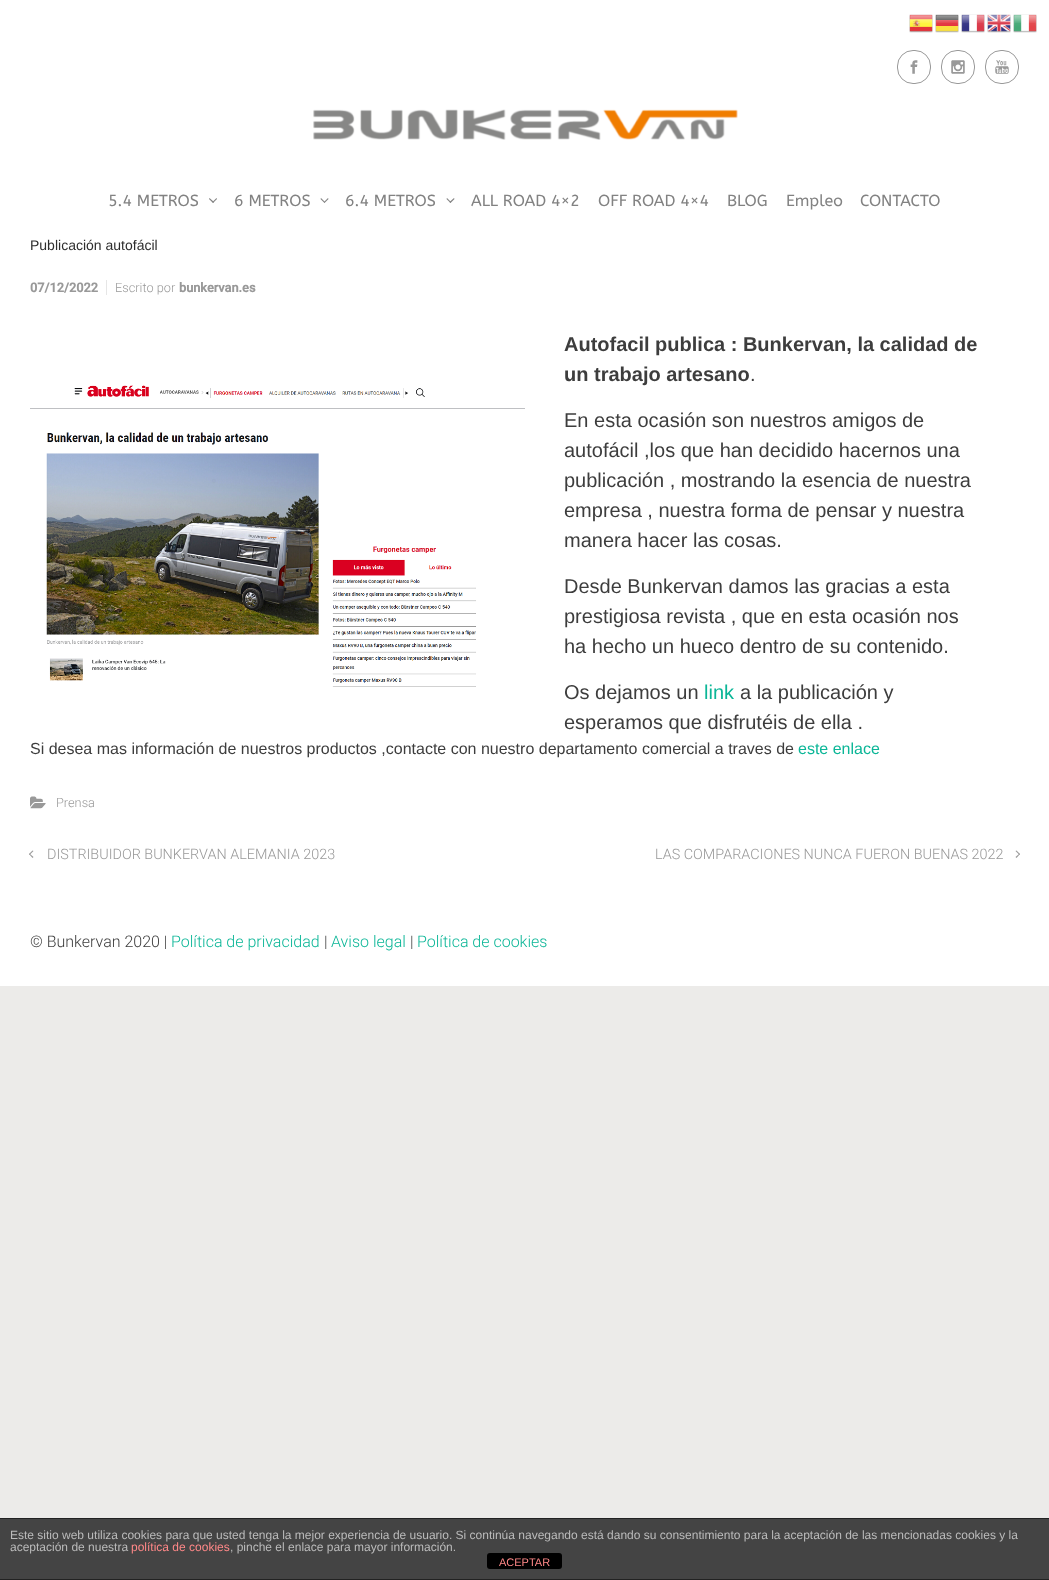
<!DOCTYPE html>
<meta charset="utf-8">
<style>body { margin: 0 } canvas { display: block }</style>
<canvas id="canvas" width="1049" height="1580"></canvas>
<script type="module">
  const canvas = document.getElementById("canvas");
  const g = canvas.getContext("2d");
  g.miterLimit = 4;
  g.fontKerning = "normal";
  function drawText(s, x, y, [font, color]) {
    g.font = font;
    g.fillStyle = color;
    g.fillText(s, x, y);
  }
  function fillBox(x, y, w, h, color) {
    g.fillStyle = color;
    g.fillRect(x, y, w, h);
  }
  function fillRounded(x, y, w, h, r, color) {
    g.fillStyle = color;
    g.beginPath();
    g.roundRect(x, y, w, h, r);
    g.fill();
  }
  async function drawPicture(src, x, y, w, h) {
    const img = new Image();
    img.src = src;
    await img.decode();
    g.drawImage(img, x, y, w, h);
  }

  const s1 = ["16px ABeeZee", "#828282"];
  const s2 = ["14px Liberation Sans", "#2D2D2D"];
  const s3 = ["bold 12.75px Roboto", "#999999"];
  const s4 = ["300 12.75px Roboto", "#999999"];
  const s5 = ["bold 20px Liberation Sans", "#3D3D3D"];
  const s6 = ["20px Liberation Sans", "#3D3D3D"];
  const s7 = ["20px Liberation Sans", "#0BB697"];
  const s8 = ["16px Liberation Sans", "#3D3D3D"];
  const s9 = ["16px Liberation Sans", "#0BB697"];
  const s10 = ["300 14.4px Roboto", "#999999"];
  const s11 = ["300 16px Roboto", "#3D3D3D"];
  const s12 = ["300 16px Roboto", "#0BB697"];
  const s13 = ["12px Liberation Sans", "#BBBBBB"];
  const s14 = ["12px Liberation Sans", "#FF8888"];
  const s15 = ["11px Liberation Sans", "#FF8888"];

  fillBox(0, 0, 1049, 1580, "#ECEBE9");
  fillBox(0, 0, 1049, 986, "#FFFFFF");
  await drawPicture("pic1.png", 909, 14, 24, 19);
  await drawPicture("pic2.png", 935, 14, 24, 19);
  await drawPicture("pic3.png", 961, 14, 24, 19);
  await drawPicture("pic4.png", 987, 14, 24, 19);
  await drawPicture("pic5.png", 1013, 14, 24, 19);
  g.beginPath();
  g.roundRect(897.5, 50.5, 33, 33, 15.5);
  g.strokeStyle = "#999999";
  g.stroke();
  await drawPicture("pic6.png", 910, 60, 8, 14);
  g.beginPath();
  g.roundRect(941.5, 50.5, 33, 33, 15.5);
  g.stroke();
  await drawPicture("pic7.png", 951, 60, 14, 14);
  g.beginPath();
  g.roundRect(985.5, 50.5, 33, 33, 15.5);
  g.stroke();
  await drawPicture("pic8.png", 995, 60, 14, 14);
  await drawPicture("pic9.png", 313, 109, 425, 31);
  drawText("5.4 METROS", 108, 206, s1);
  g.beginPath();
  g.moveTo(216.5, 198);
  g.lineTo(217, 199);
  g.lineTo(213, 203);
  g.lineTo(212.5, 202);
  g.closePath();
  g.fill();
  g.beginPath();
  g.moveTo(209.5, 198);
  g.lineTo(214, 202);
  g.lineTo(213, 203);
  g.lineTo(209, 199);
  g.closePath();
  g.fill();
  drawText("6 METROS", 234, 206, s1);
  g.beginPath();
  g.moveTo(328, 198);
  g.lineTo(328.5, 199);
  g.lineTo(324.5, 203);
  g.lineTo(324, 202);
  g.closePath();
  g.fill();
  g.beginPath();
  g.moveTo(321, 198);
  g.lineTo(325, 202);
  g.lineTo(324.5, 203);
  g.lineTo(320.5, 199);
  g.closePath();
  g.fill();
  drawText("6.4 METROS", 345, 206, s1);
  g.beginPath();
  g.moveTo(454, 198);
  g.lineTo(454.5, 199);
  g.lineTo(450.5, 203);
  g.lineTo(449.5, 202);
  g.closePath();
  g.fill();
  g.beginPath();
  g.moveTo(447, 198);
  g.lineTo(451, 202);
  g.lineTo(450.5, 203);
  g.lineTo(446.5, 199);
  g.closePath();
  g.fill();
  drawText("ALL ROAD 4×2", 471, 206, s1);
  drawText("OFF ROAD 4×4", 598, 206, s1);
  drawText("BLOG", 727, 206, s1);
  drawText("Empleo", 786, 206, s1);
  drawText("CONTACTO", 860, 206, s1);
  drawText("Publicación autofácil", 30, 250, s2);
  drawText("07/12/2022", 30, 292, s3);
  fillBox(106, 280, 1, 15, "#E6E6E6");
  drawText("Escrito por", 115, 292, s4);
  drawText("bunkervan.es", 179, 292, s3);
  await drawPicture("pic10.png", 30, 385, 495, 302);
  drawText("Autofacil publica : Bunkervan, la calidad de", 564, 351, s5);
  drawText("un trabajo artesano", 564, 381, s5);
  drawText(".", 750, 381, s6);
  drawText("En esta ocasión son nuestros amigos de", 564, 427, s6);
  drawText("autofácil ,los que han decidido hacernos una", 564, 457, s6);
  drawText("publicación , mostrando la esencia de nuestra", 564, 487, s6);
  drawText("empresa , nuestra forma de pensar y nuestra", 564, 517, s6);
  drawText("manera hacer las cosas.", 564, 547, s6);
  drawText("Desde Bunkervan damos las gracias a esta", 564, 593, s6);
  drawText("prestigiosa revista , que en esta ocasión nos", 564, 623, s6);
  drawText("ha hecho un hueco dentro de su contenido.", 564, 653, s6);
  drawText("Os dejamos un", 564, 699, s6);
  drawText("link", 704, 699, s7);
  drawText("a la publicación y", 740, 699, s6);
  drawText("esperamos que disfrutéis de ella .", 564, 729, s6);
  drawText("Si desea mas información de nuestros productos ,contacte con nuestro departamento comercial a traves de", 30, 754, s8);
  drawText("este enlace", 798, 754, s9);
  await drawPicture("pic11.png", 30, 796, 16, 13);
  drawText("Prensa", 56, 807, s4);
  g.beginPath();
  g.moveTo(33.5, 857);
  g.lineTo(32.5, 858);
  g.lineTo(29, 854);
  g.lineTo(29.5, 853.5);
  g.closePath();
  g.fill();
  g.beginPath();
  g.moveTo(33.5, 851);
  g.lineTo(29.5, 855);
  g.lineTo(29, 854);
  g.lineTo(32.5, 850.5);
  g.closePath();
  g.fill();
  drawText("DISTRIBUIDOR BUNKERVAN ALEMANIA 2023", 47, 859, s10);
  drawText("LAS COMPARACIONES NUNCA FUERON BUENAS 2022", 655, 859, s10);
  g.beginPath();
  g.moveTo(1015.5, 851);
  g.lineTo(1016.5, 850.5);
  g.lineTo(1020, 854);
  g.lineTo(1019.5, 855);
  g.closePath();
  g.fill();
  g.beginPath();
  g.moveTo(1015.5, 857);
  g.lineTo(1019.5, 853.5);
  g.lineTo(1020, 854);
  g.lineTo(1016.5, 858);
  g.closePath();
  g.fill();
  drawText("© Bunkervan 2020 |", 30, 947, s11);
  drawText("Política de privacidad", 171, 947, s12);
  drawText("|", 324, 947, s11);
  drawText("Aviso legal", 331, 947, s12);
  drawText("|", 410, 947, s11);
  drawText("Política de cookies", 417, 947, s12);
  fillBox(0, 1519, 1049, 60, "#444444");
  fillBox(0, 1518, 1049, 1, "#222222");
  fillBox(0, 1579, 1049, 1, "#222222");
  drawText("Este sitio web utiliza cookies para que usted tenga la mejor experiencia de usuario. Si continúa navegando está dando su consentimiento para la aceptación de las mencionadas cookies y la", 10, 1539, s13);
  drawText("aceptación de nuestra", 10, 1551, s13);
  drawText("política de cookies", 131, 1551, s14);
  drawText(", pinche el enlace para mayor información.", 230, 1551, s13);
  fillRounded(487, 1553, 75, 16, 3, "#000000");
  drawText("ACEPTAR", 499, 1566, s15);
</script>
